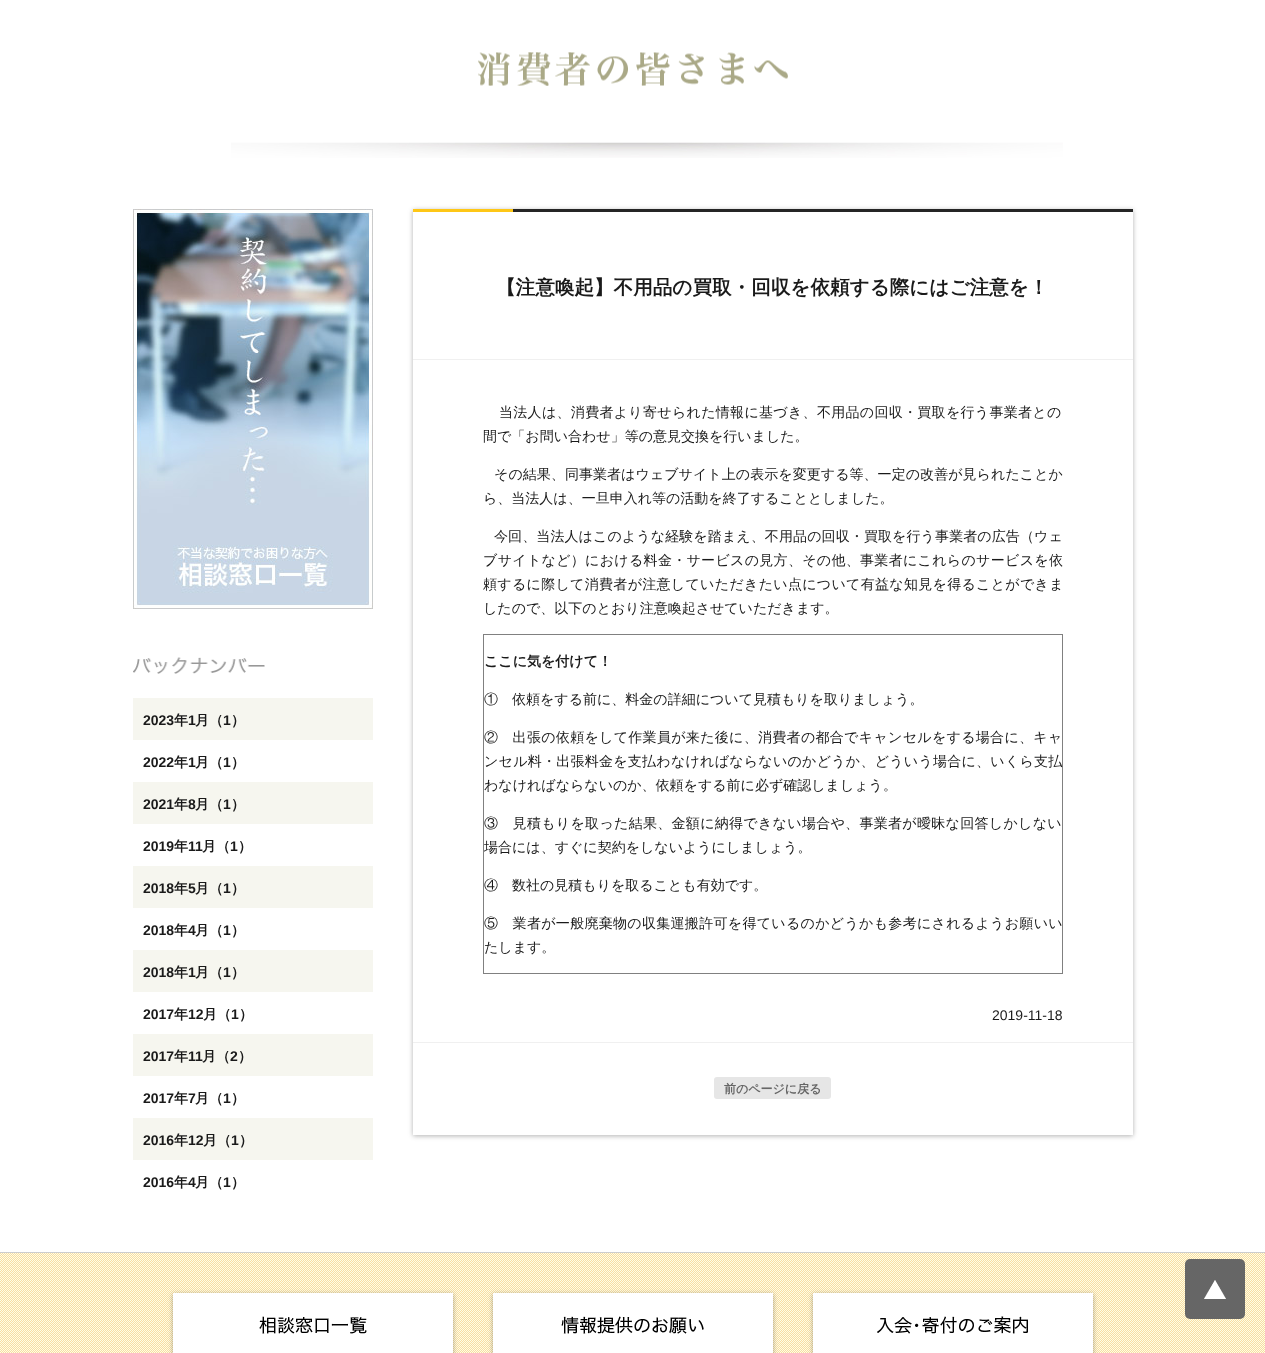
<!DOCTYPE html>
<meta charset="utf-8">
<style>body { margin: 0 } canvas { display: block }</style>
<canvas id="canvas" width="1265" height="1353"></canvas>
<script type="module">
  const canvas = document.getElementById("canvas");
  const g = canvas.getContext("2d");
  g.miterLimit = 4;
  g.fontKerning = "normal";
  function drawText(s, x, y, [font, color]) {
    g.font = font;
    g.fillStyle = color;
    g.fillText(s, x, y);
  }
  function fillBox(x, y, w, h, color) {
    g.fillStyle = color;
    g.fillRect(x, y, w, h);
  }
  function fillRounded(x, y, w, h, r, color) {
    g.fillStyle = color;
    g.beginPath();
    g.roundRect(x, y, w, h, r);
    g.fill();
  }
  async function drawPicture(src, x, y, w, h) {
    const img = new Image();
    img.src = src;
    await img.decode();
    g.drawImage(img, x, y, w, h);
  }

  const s1 = ["bold 14px Liberation Sans", "#1A1A1A"];
  const s2 = ["bold 14px WenQuanYi Zen Hei", "#1A1A1A"];
  const s3 = ["bold 19.6px WenQuanYi Zen Hei", "#1A1A1A"];
  const s4 = ["500 14px WenQuanYi Zen Hei", "#1A1A1A"];
  const s5 = ["14px Liberation Sans", "#1A1A1A"];
  const s6 = ["bold 12px WenQuanYi Zen Hei", "#666666"];

  fillBox(0, 0, 1265, 1353, "#FFFFFF");
  await drawPicture("pic1.png", 231, 142, 832, 16);
  await drawPicture("pic2.png", 478, 52, 310, 34);
  await drawPicture("pic3.png", 133, 209, 240, 400);
  await drawPicture("pic4.png", 133, 657, 132, 17);
  fillBox(133, 698, 240, 42, "#F6F6EF");
  drawText("2023", 143, 725, s1);
  drawText("年", 174, 725, s2);
  drawText("1", 188, 725, s1);
  drawText("月（", 195, 725, s2);
  drawText("1", 223, 725, s1);
  drawText("）", 231, 725, s2);
  drawText("2022", 143, 767, s1);
  drawText("年", 174, 767, s2);
  drawText("1", 188, 767, s1);
  drawText("月（", 195, 767, s2);
  drawText("1", 223, 767, s1);
  drawText("）", 231, 767, s2);
  fillBox(133, 782, 240, 42, "#F6F6EF");
  drawText("2021", 143, 809, s1);
  drawText("年", 174, 809, s2);
  drawText("8", 188, 809, s1);
  drawText("月（", 195, 809, s2);
  drawText("1", 223, 809, s1);
  drawText("）", 231, 809, s2);
  drawText("2019", 143, 851, s1);
  drawText("年", 174, 851, s2);
  drawText("11", 188, 851, s1);
  drawText("月（", 202, 851, s2);
  drawText("1", 230, 851, s1);
  drawText("）", 238, 851, s2);
  fillBox(133, 866, 240, 42, "#F6F6EF");
  drawText("2018", 143, 893, s1);
  drawText("年", 174, 893, s2);
  drawText("5", 188, 893, s1);
  drawText("月（", 195, 893, s2);
  drawText("1", 223, 893, s1);
  drawText("）", 231, 893, s2);
  drawText("2018", 143, 935, s1);
  drawText("年", 174, 935, s2);
  drawText("4", 188, 935, s1);
  drawText("月（", 195, 935, s2);
  drawText("1", 223, 935, s1);
  drawText("）", 231, 935, s2);
  fillBox(133, 950, 240, 42, "#F6F6EF");
  drawText("2018", 143, 977, s1);
  drawText("年", 174, 977, s2);
  drawText("1", 188, 977, s1);
  drawText("月（", 195, 977, s2);
  drawText("1", 223, 977, s1);
  drawText("）", 231, 977, s2);
  drawText("2017", 143, 1019, s1);
  drawText("年", 174, 1019, s2);
  drawText("12", 188, 1019, s1);
  drawText("月（", 203, 1019, s2);
  drawText("1", 231, 1019, s1);
  drawText("）", 239, 1019, s2);
  fillBox(133, 1034, 240, 42, "#F6F6EF");
  drawText("2017", 143, 1061, s1);
  drawText("年", 174, 1061, s2);
  drawText("11", 188, 1061, s1);
  drawText("月（", 202, 1061, s2);
  drawText("2", 230, 1061, s1);
  drawText("）", 238, 1061, s2);
  drawText("2017", 143, 1103, s1);
  drawText("年", 174, 1103, s2);
  drawText("7", 188, 1103, s1);
  drawText("月（", 195, 1103, s2);
  drawText("1", 223, 1103, s1);
  drawText("）", 231, 1103, s2);
  fillBox(133, 1118, 240, 42, "#F6F6EF");
  drawText("2016", 143, 1145, s1);
  drawText("年", 174, 1145, s2);
  drawText("12", 188, 1145, s1);
  drawText("月（", 203, 1145, s2);
  drawText("1", 231, 1145, s1);
  drawText("）", 239, 1145, s2);
  drawText("2016", 143, 1187, s1);
  drawText("年", 174, 1187, s2);
  drawText("4", 188, 1187, s1);
  drawText("月（", 195, 1187, s2);
  drawText("1", 223, 1187, s1);
  drawText("）", 231, 1187, s2);
  g.save();
  g.beginPath();
  g.moveTo(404, 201);
  g.lineTo(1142, 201);
  g.lineTo(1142, 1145);
  g.lineTo(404, 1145);
  g.closePath();
  g.moveTo(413, 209);
  g.lineTo(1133, 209);
  g.lineTo(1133, 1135);
  g.lineTo(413, 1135);
  g.closePath();
  g.clip("evenodd");
  g.fillStyle = "rgba(0, 0, 0, 0.3)";
  g.filter = "blur(2.5px)";
  g.beginPath();
  g.rect(413, 210, 720, 926);
  g.fill();
  g.filter = "none";
  g.restore();
  await drawPicture("pic5.png", 413, 209, 720, 3);
  fillBox(413, 359, 720, 1, "#F0F0F0");
  drawText("【注意喚起】不用品の買取・回収を依頼する際にはご注意を！", 496, 294, s3);
  g.letterSpacing = "0.3px";
  drawText("当法人は、消費者より寄せられた情報に基づき、不用品の回収・買取を行う事業者との", 499, 417, s4);
  g.letterSpacing = "0px";
  drawText("間で「お問い合わせ」等の意見交換を行いました。", 483, 441, s4);
  g.letterSpacing = "0.05px";
  drawText("その結果、同事業者はウェブサイト上の表示を変更する等、一定の改善が見られたことか", 494, 479, s4);
  g.letterSpacing = "0px";
  drawText("ら、当法人は、一旦申入れ等の活動を終了することとしました。", 483, 503, s4);
  g.letterSpacing = "0.1px";
  drawText("今回、当法人はこのような経験を踏まえ、不用品の回収・買取を行う事業者の広告（ウェ", 494, 541, s4);
  g.letterSpacing = "0.3px";
  drawText("ブサイトなど）における料金・サービスの見方、その他、事業者にこれらのサービスを依", 483, 565, s4);
  drawText("頼するに際して消費者が注意していただきたい点について有益な知見を得ることができま", 483, 589, s4);
  g.letterSpacing = "0px";
  drawText("したので、以下のとおり注意喚起させていただきます。", 483, 613, s4);
  fillBox(483, 634, 580, 1, "#808080");
  fillBox(1062, 634, 1, 340, "#808080");
  fillBox(483, 973, 580, 1, "#808080");
  fillBox(483, 634, 1, 340, "#808080");
  drawText("ここに気を付けて！", 484, 666, s2);
  drawText("①　依頼をする前に、料金の詳細について見積もりを取りましょう。", 484, 704, s4);
  g.letterSpacing = "0.3px";
  drawText("②　出張の依頼をして作業員が来た後に、消費者の都合でキャンセルをする場合に、キャ", 484, 742, s4);
  g.letterSpacing = "0.25px";
  drawText("ンセル料・出張料金を支払わなければならないのかどうか、どういう場合に、いくら支払", 484, 766, s4);
  g.letterSpacing = "0px";
  drawText("わなければならないのか、依頼をする前に必ず確認しましょう。", 484, 790, s4);
  g.letterSpacing = "0.3px";
  drawText("③　見積もりを取った結果、金額に納得できない場合や、事業者が曖昧な回答しかしない", 484, 828, s4);
  g.letterSpacing = "0px";
  drawText("場合には、すぐに契約をしないようにしましょう。", 484, 852, s4);
  drawText("④　数社の見積もりを取ることも有効です。", 484, 890, s4);
  g.letterSpacing = "0.3px";
  drawText("⑤　業者が一般廃棄物の収集運搬許可を得ているのかどうかも参考にされるようお願いい", 484, 928, s4);
  g.letterSpacing = "0px";
  drawText("たします。", 484, 952, s4);
  drawText("2019-11-18", 992, 1020, s5);
  fillBox(413, 1042, 720, 1, "#F0F0F0");
  fillRounded(714, 1077, 117, 22, 3, "#E6E6E6");
  drawText("前のページに戻る", 724, 1093, s6);
  fillBox(0, 1252, 1265, 1, "#CCCCCC");
  await drawPicture("pic6.png", 0, 1253, 1265, 100);
  g.fillStyle = "rgba(0, 0, 0, 0.3)";
  g.filter = "blur(2.5px)";
  g.beginPath();
  g.rect(173, 1294, 280, 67);
  g.fill();
  g.filter = "none";
  fillBox(173, 1293, 280, 60, "#FFFFFF");
  await drawPicture("pic7.png", 259, 1316, 108, 18);
  g.fillStyle = "rgba(0, 0, 0, 0.3)";
  g.filter = "blur(2.5px)";
  g.beginPath();
  g.rect(493, 1294, 280, 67);
  g.fill();
  g.filter = "none";
  fillBox(493, 1293, 280, 60, "#FFFFFF");
  await drawPicture("pic8.png", 561, 1316, 143, 18);
  g.fillStyle = "rgba(0, 0, 0, 0.3)";
  g.filter = "blur(2.5px)";
  g.beginPath();
  g.rect(813, 1294, 280, 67);
  g.fill();
  g.filter = "none";
  fillBox(813, 1293, 280, 60, "#FFFFFF");
  await drawPicture("pic9.png", 877, 1316, 151, 18);
  fillRounded(1185, 1259, 60, 60, 5, "#666666");
  await drawPicture("pic10.png", 1204, 1280, 22, 19);
</script>
